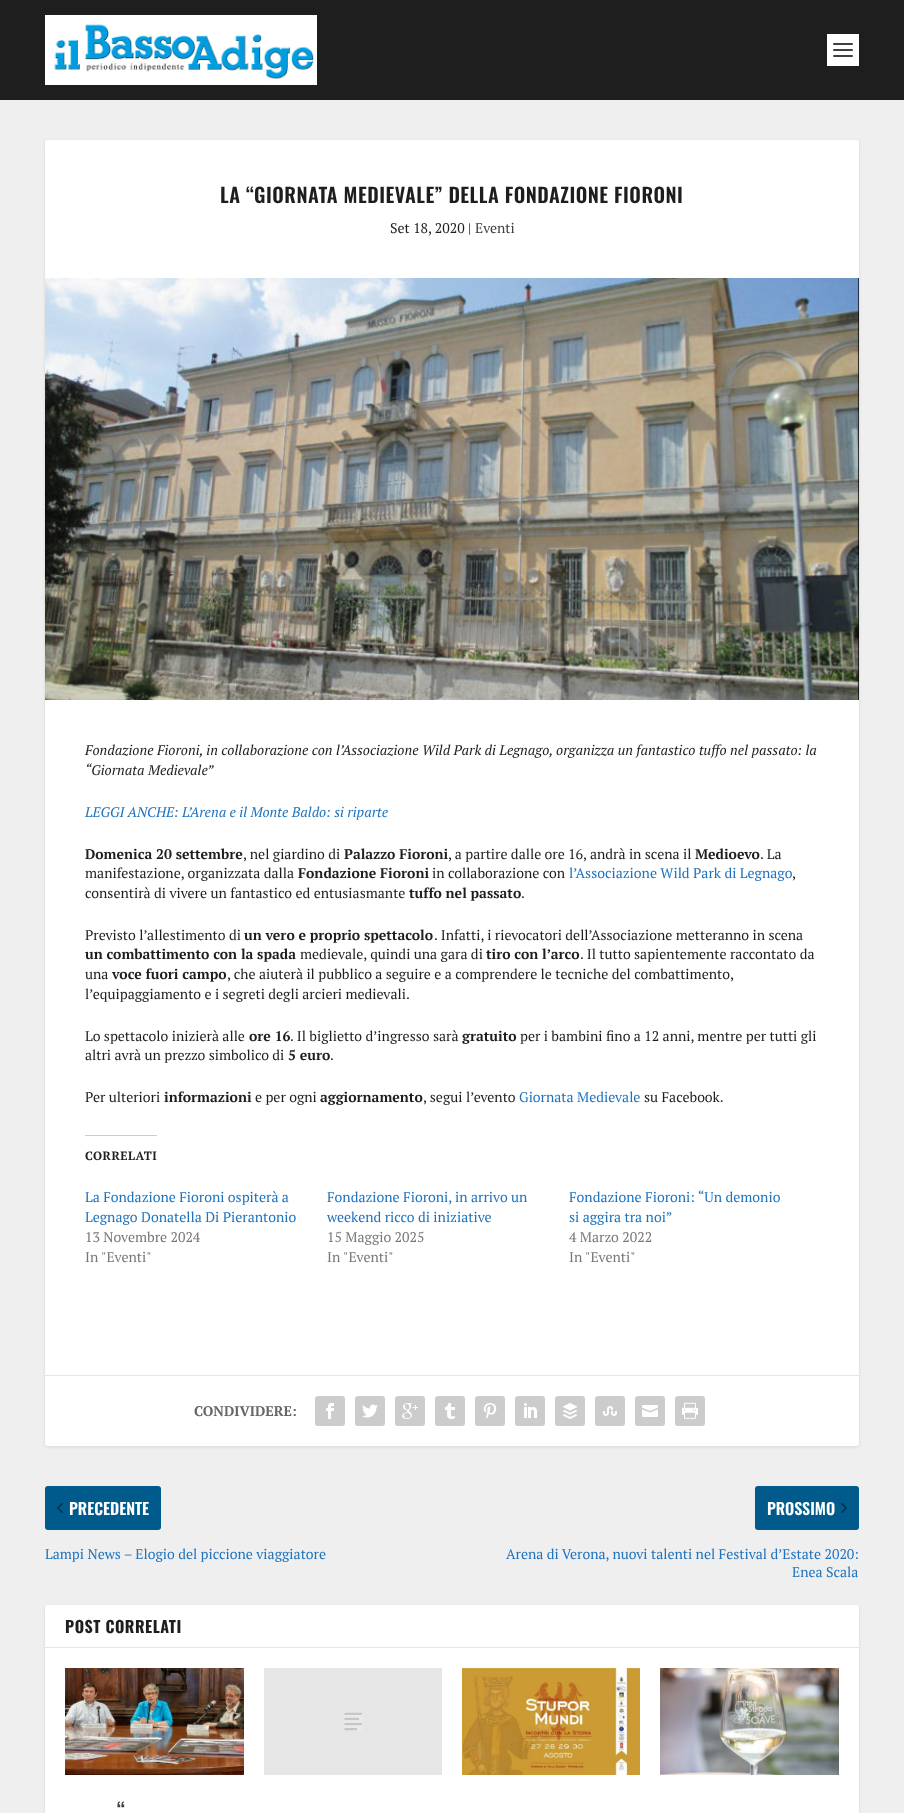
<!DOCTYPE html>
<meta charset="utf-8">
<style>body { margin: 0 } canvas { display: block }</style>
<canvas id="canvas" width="904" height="1813"></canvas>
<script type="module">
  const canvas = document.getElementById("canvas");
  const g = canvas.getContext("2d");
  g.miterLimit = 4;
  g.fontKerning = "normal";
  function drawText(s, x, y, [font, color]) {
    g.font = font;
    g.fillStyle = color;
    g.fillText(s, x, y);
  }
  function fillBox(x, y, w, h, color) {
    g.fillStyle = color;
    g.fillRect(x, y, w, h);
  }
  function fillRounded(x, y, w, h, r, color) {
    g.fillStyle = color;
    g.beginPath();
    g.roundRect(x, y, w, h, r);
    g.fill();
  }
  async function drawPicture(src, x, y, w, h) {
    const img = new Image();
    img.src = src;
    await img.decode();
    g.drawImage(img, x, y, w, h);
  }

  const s1 = ["600 20px Oswald", "#1F1E1E"];
  const s2 = ["14px PT Serif", "#1F1E1E"];
  const s3 = ["14px PT Serif", "#404040"];
  const s4 = ["italic 14px PT Serif", "#1F1E1E"];
  const s5 = ["italic 14px PT Serif", "#1E73BE"];
  const s6 = ["bold 14px PT Serif", "#1F1E1E"];
  const s7 = ["14px PT Serif", "#1E73BE"];
  const s8 = ["bold 12px PT Serif", "#1F1E1E"];
  const s9 = ["14px PT Serif", "#797878"];
  const s10 = ["bold 14px PT Serif", "#666666"];
  const s11 = ["600 16px Oswald", "#FFFFFF"];
  const s12 = ["bold 16px Oswald", "#1F1E1E"];
  const s13 = ["600 20px Oswald", "#404040"];

  fillBox(0, 0, 904, 1813, "#EFEFEF");
  fillBox(0, 0, 904, 100, "#1F1E1E");
  await drawPicture("pic1.png", 45, 15, 272, 70);
  fillBox(827, 34, 32, 32, "#FFFFFF");
  fillRounded(833, 43, 20, 2, 1, "#404040");
  fillRounded(833, 49, 20, 2, 1, "#404040");
  fillRounded(833, 55, 20, 2, 1, "#404040");
  g.fillStyle = "rgba(0, 0, 0, 0.1)";
  g.filter = "blur(1.5px)";
  g.beginPath();
  g.roundRect(45, 141, 814, 1306, 3);
  g.fill();
  g.filter = "none";
  fillRounded(45, 140, 814, 1306, 3, "#FFFFFF");
  g.letterSpacing = "0.5px";
  drawText("LA “GIORNATA MEDIEVALE” DELLA FONDAZIONE FIORONI", 220, 203, s1);
  g.letterSpacing = "0px";
  drawText("Set 18, 2020 |", 390, 233, s2);
  drawText("Eventi", 475, 233, s3);
  await drawPicture("pic2.png", 45, 278, 814, 422);
  drawText("Fondazione Fioroni, in collaborazione con l’Associazione Wild Park di Legnago, organizza un fantastico tuffo nel passato: la", 85, 755, s4);
  drawText("“Giornata Medievale”", 85, 775, s4);
  drawText("LEGGI ANCHE: L’Arena e il Monte Baldo: si riparte", 85, 817, s5);
  drawText("Domenica 20 settembre", 85, 859, s6);
  drawText(", nel giardino di", 243, 859, s2);
  drawText("Palazzo Fioroni", 344, 859, s6);
  drawText(", a partire dalle ore 16, andrà in scena il", 448, 859, s2);
  drawText("Medioevo", 695, 859, s6);
  drawText(". La", 760, 859, s2);
  drawText("manifestazione, organizzata dalla", 85, 878, s2);
  drawText("Fondazione Fioroni", 298, 878, s6);
  drawText("in collaborazione con", 432, 878, s2);
  drawText("l’Associazione Wild Park di Legnago", 569, 878, s7);
  drawText(",", 792, 878, s2);
  drawText("consentirà di vivere un fantastico ed entusiasmante", 85, 898, s2);
  drawText("tuffo nel passato", 409, 898, s6);
  drawText(".", 521, 898, s2);
  drawText("Previsto l’allestimento di", 85, 940, s2);
  drawText("un vero e proprio spettacolo", 244, 940, s6);
  drawText(". Infatti, i rievocatori dell’Associazione metteranno in scena", 434, 940, s2);
  drawText("un combattimento con la spada", 85, 959, s6);
  drawText("medievale, quindi una gara di", 300, 959, s2);
  drawText("tiro con l’arco", 486, 959, s6);
  drawText(". Il tutto sapientemente raccontato da", 580, 959, s2);
  drawText("una", 85, 979, s2);
  drawText("voce fuori campo", 112, 979, s6);
  drawText(", che aiuterà il pubblico a seguire e a comprendere le tecniche del combattimento,", 227, 979, s2);
  drawText("l’equipaggiamento e i segreti degli arcieri medievali.", 85, 999, s2);
  drawText("Lo spettacolo inizierà alle", 85, 1041, s2);
  drawText("ore 16", 249, 1041, s6);
  drawText(". Il biglietto d’ingresso sarà", 290, 1041, s2);
  drawText("gratuito", 462, 1041, s6);
  drawText("per i bambini fino a 12 anni, mentre per tutti gli", 520, 1041, s2);
  drawText("altri avrà un prezzo simbolico di", 85, 1060, s2);
  drawText("5 euro", 288, 1060, s6);
  drawText(".", 330, 1060, s2);
  drawText("Per ulteriori", 85, 1102, s2);
  drawText("informazioni", 164, 1102, s6);
  drawText("e per ogni", 255, 1102, s2);
  drawText("aggiornamento", 320, 1102, s6);
  drawText(", segui l’evento", 423, 1102, s2);
  drawText("Giornata Medievale", 519, 1102, s7);
  drawText("su Facebook.", 644, 1102, s2);
  fillBox(85, 1135, 72, 1, "#CCCCCC");
  g.letterSpacing = "0.5px";
  drawText("CORRELATI", 85, 1160, s8);
  g.letterSpacing = "0px";
  drawText("La Fondazione Fioroni ospiterà a", 85, 1202, s7);
  drawText("Legnago Donatella Di Pierantonio", 85, 1222, s7);
  drawText("13 Novembre 2024", 85, 1242, s9);
  drawText("In \"Eventi\"", 85, 1262, s9);
  drawText("Fondazione Fioroni, in arrivo un", 327, 1202, s7);
  drawText("weekend ricco di iniziative", 327, 1222, s7);
  drawText("15 Maggio 2025", 327, 1242, s9);
  drawText("In \"Eventi\"", 327, 1262, s9);
  drawText("Fondazione Fioroni: “Un demonio", 569, 1202, s7);
  drawText("si aggira tra noi”", 569, 1222, s7);
  drawText("4 Marzo 2022", 569, 1242, s9);
  drawText("In \"Eventi\"", 569, 1262, s9);
  fillBox(45, 1375, 814, 1, "#E6E6E6");
  drawText("CONDIVIDERE:", 194, 1416, s10);
  fillRounded(315, 1396, 30, 30, 3, "#CCCCCC");
  await drawPicture("pic3.png", 326, 1403, 8, 16);
  fillRounded(355, 1396, 30, 30, 3, "#CCCCCC");
  await drawPicture("pic4.png", 362, 1404, 16, 14);
  fillRounded(395, 1396, 30, 30, 3, "#CCCCCC");
  await drawPicture("pic5.png", 402, 1403, 16, 16);
  fillRounded(435, 1396, 30, 30, 3, "#CCCCCC");
  await drawPicture("pic6.png", 445, 1403, 10, 16);
  fillRounded(475, 1396, 30, 30, 3, "#CCCCCC");
  await drawPicture("pic7.png", 483, 1403, 14, 16);
  fillRounded(515, 1396, 30, 30, 3, "#CCCCCC");
  await drawPicture("pic8.png", 524, 1403, 13, 15);
  fillRounded(555, 1396, 30, 30, 3, "#CCCCCC");
  await drawPicture("pic9.png", 562, 1403, 16, 16);
  fillRounded(595, 1396, 30, 30, 3, "#CCCCCC");
  await drawPicture("pic10.png", 603, 1406, 14, 10);
  fillRounded(635, 1396, 30, 30, 3, "#CCCCCC");
  await drawPicture("pic11.png", 642, 1405, 16, 12);
  fillRounded(675, 1396, 30, 30, 3, "#CCCCCC");
  await drawPicture("pic12.png", 682, 1402, 16, 17);
  fillRounded(45, 1486, 116, 44, 3, "#005A8C");
  await drawPicture("pic13.png", 57, 1503, 6, 10);
  drawText("PRECEDENTE", 69, 1515, s11);
  drawText("Lampi News – Elogio del piccione viaggiatore", 45, 1559, s7);
  fillRounded(755, 1486, 104, 44, 3, "#005A8C");
  drawText("PROSSIMO", 767, 1515, s11);
  await drawPicture("pic14.png", 841, 1503, 6, 10);
  drawText("Arena di Verona, nuovi talenti nel Festival d’Estate 2020:", 506, 1559, s7);
  drawText("Enea Scala", 792, 1577, s7);
  g.fillStyle = "rgba(0, 0, 0, 0.1)";
  g.filter = "blur(1.5px)";
  g.beginPath();
  g.roundRect(45, 1606, 814, 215, 3);
  g.fill();
  g.filter = "none";
  fillRounded(45, 1605, 814, 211, 3, "#FFFFFF");
  fillBox(45, 1647, 814, 1, "#E6E6E6");
  g.letterSpacing = "0.5px";
  drawText("POST CORRELATI", 65, 1633, s12);
  fillBox(264, 1668, 178, 107, "#E6E6E6");
  await drawPicture("pic15.png", 344, 1712, 18, 19);
  await drawPicture("pic16.png", 462, 1668, 178, 107);
  await drawPicture("pic17.png", 660, 1668, 179, 107);
  await drawPicture("pic18.png", 65, 1668, 179, 107);
  drawText("“", 117, 1818, s13);
</script>
